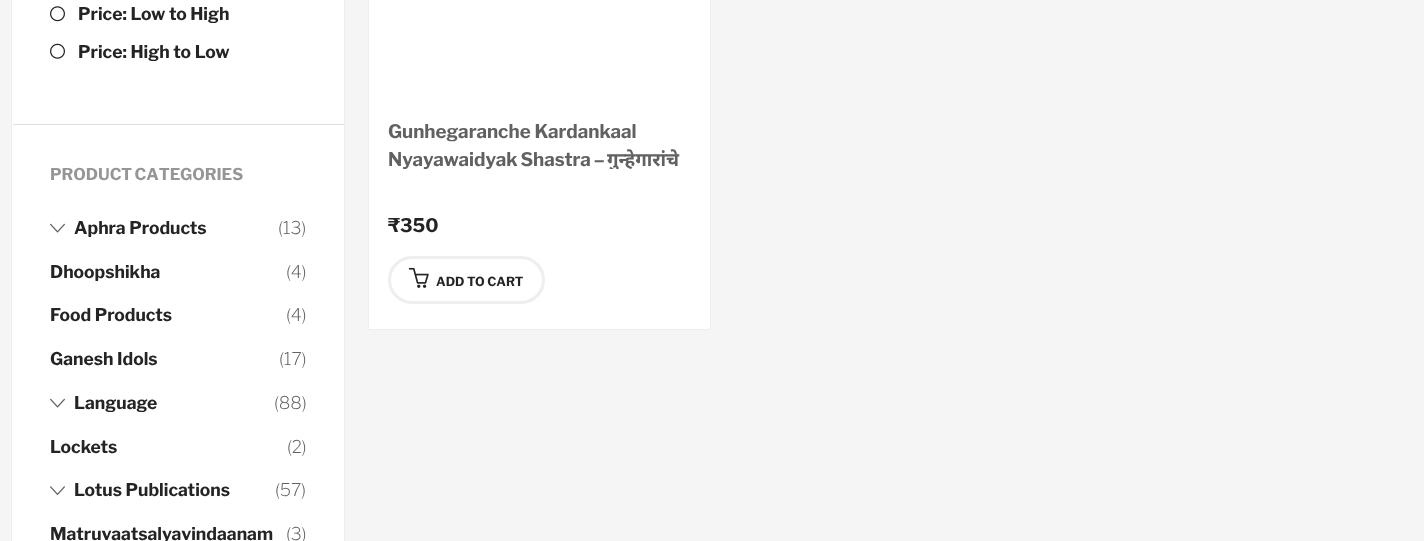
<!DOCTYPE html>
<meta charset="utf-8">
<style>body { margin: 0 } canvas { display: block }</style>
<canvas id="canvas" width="1424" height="541"></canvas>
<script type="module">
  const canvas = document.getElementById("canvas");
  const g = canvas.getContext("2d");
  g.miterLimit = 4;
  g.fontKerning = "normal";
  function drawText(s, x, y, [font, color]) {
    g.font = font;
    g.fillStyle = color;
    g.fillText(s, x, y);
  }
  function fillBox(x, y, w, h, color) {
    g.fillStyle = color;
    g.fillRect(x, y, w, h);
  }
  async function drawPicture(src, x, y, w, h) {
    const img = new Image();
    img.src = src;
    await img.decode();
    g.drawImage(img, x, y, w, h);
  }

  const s1 = ["bold 17.5px Libre Franklin", "#242424"];
  const s2 = ["bold 16.25px Libre Franklin", "#969696"];
  const s3 = ["200 17.5px Libre Franklin", "#616161"];
  const s4 = ["bold 18.75px Libre Franklin", "#616161"];
  const s5 = ["bold 18.75px Noto Sans", "#616161"];
  const s6 = ["bold 18.75px Libre Franklin", "#242424"];
  const s7 = ["bold 12.5px Libre Franklin", "#242424"];

  fillBox(0, 0, 1424, 541, "#F5F5F5");
  g.fillStyle = "#FFFFFF";
  g.beginPath();
  g.rect(11.5, -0.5, 333, 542);
  g.fill();
  g.strokeStyle = "#EEEEEE";
  g.stroke();
  fillBox(13, 124, 331, 1, "#DFDFDF");
  await drawPicture("pic1.png", 50, 6, 15, 16);
  drawText("Price: Low to High", 78, 20, s1);
  await drawPicture("pic2.png", 50, 43, 15, 16);
  drawText("Price: High to Low", 78, 58, s1);
  g.wordSpacing = "-1px";
  drawText("PRODUCT CATEGORIES", 50, 180, s2);
  await drawPicture("pic3.png", 50, 223, 15, 10);
  g.wordSpacing = "0px";
  drawText("Aphra Products", 74, 234, s1);
  drawText("(13)", 278, 234, s3);
  drawText("Dhoopshikha", 50, 278, s1);
  drawText("(4)", 286, 278, s3);
  drawText("Food Products", 50, 321, s1);
  drawText("(4)", 286, 321, s3);
  drawText("Ganesh Idols", 50, 365, s1);
  drawText("(17)", 279, 365, s3);
  await drawPicture("pic3.png", 50, 398, 15, 10);
  drawText("Language", 74, 409, s1);
  drawText("(88)", 274, 409, s3);
  drawText("Lockets", 50, 453, s1);
  drawText("(2)", 287, 453, s3);
  await drawPicture("pic4.png", 50, 486, 15, 9);
  drawText("Lotus Publications", 74, 496, s1);
  drawText("(57)", 275, 496, s3);
  drawText("Matruvaatsalyavindaanam", 50, 540, s1);
  drawText("(3)", 286, 540, s3);
  g.fillStyle = "#FFFFFF";
  g.beginPath();
  g.rect(368.5, -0.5, 342, 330);
  g.fill();
  g.stroke();
  drawText("Gunhegaranche Kardankaal", 388, 138, s4);
  g.save();
  g.beginPath();
  g.rect(388, 119, 303, 50);
  g.clip();
  g.wordSpacing = "-1px";
  drawText("Nyayawaidyak Shastra –", 388, 166, s4);
  g.wordSpacing = "0px";
  drawText("गुन्हेगारांचे", 607, 166, s5);
  g.restore();
  drawText("₹350", 388, 232, s6);
  g.beginPath();
  g.roundRect(389.5, 257.5, 154, 45, 22.5);
  g.lineWidth = 3;
  g.stroke();
  await drawPicture("pic5.png", 408, 267, 21, 21);
  drawText("ADD TO CART", 436, 286, s7);
</script>
